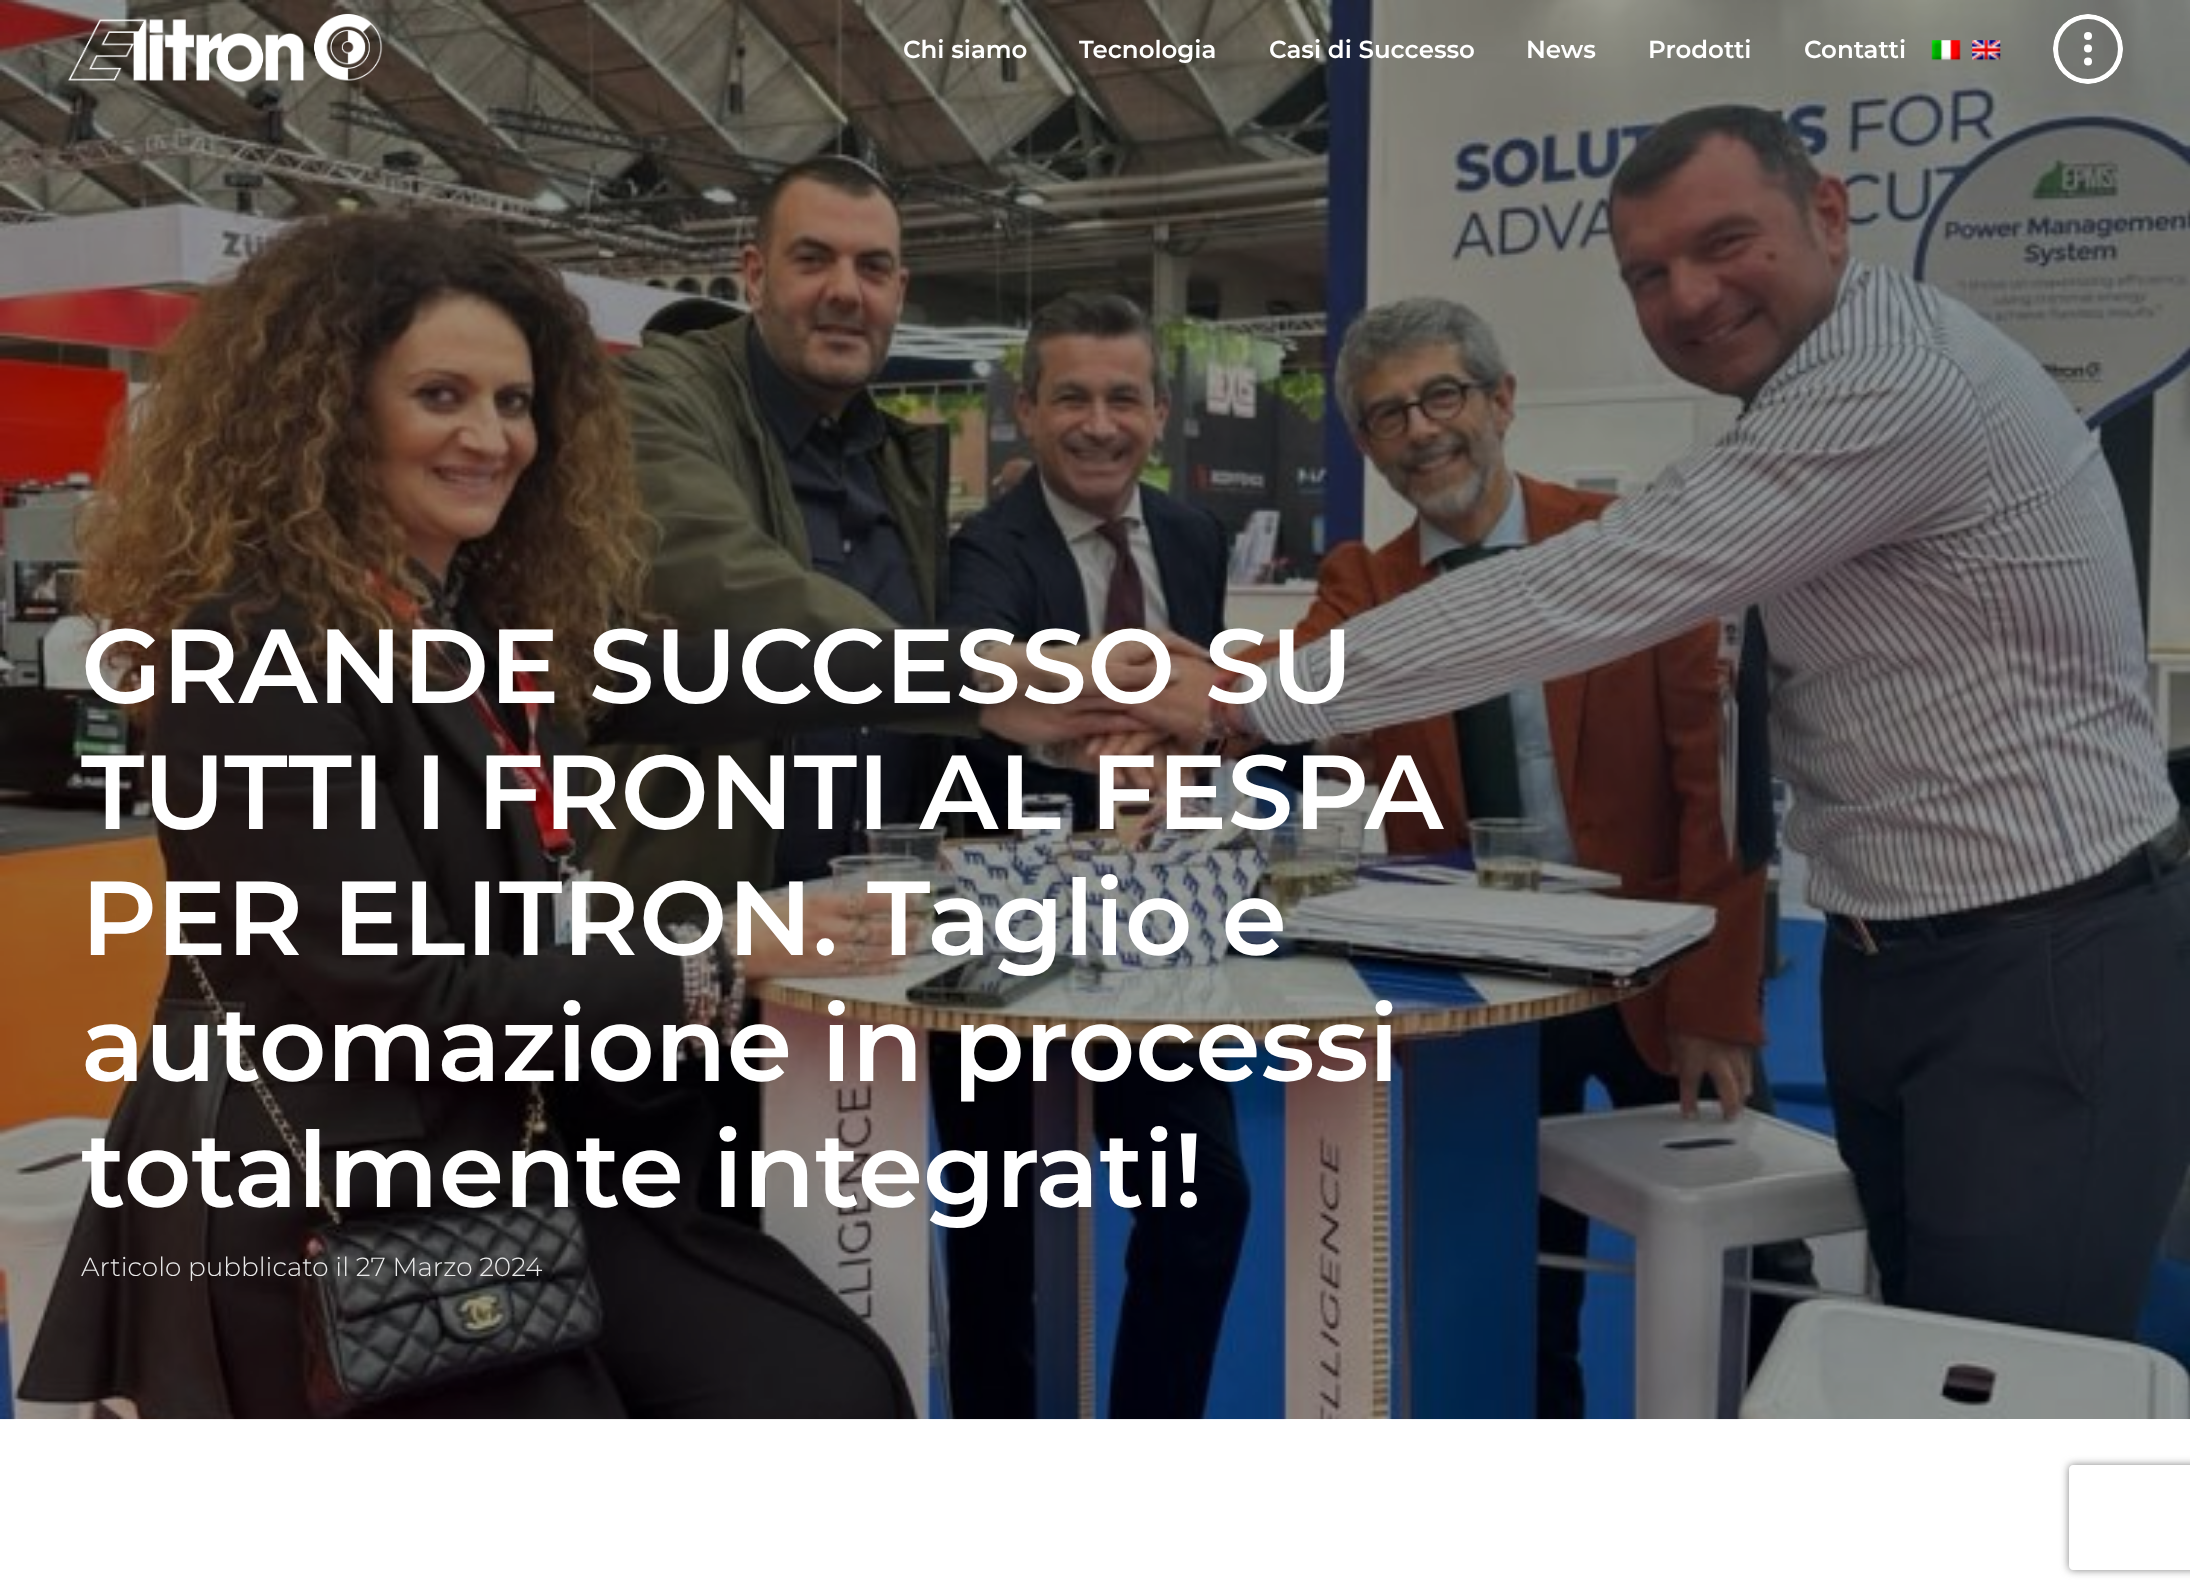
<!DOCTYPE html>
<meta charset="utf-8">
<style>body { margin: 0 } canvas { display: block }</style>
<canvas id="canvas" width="2190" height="1594"></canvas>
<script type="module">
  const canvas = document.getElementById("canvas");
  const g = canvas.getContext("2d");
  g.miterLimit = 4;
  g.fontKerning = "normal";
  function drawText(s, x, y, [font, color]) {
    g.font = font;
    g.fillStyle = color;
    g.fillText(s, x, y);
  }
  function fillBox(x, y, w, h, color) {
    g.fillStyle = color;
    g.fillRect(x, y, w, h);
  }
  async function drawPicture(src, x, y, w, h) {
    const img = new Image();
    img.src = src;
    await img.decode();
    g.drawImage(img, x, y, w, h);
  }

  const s1 = ["600 24.5px Montserrat", "#FFFFFF"];
  const s2 = ["600 105px Montserrat", "#FFFFFF"];
  const s3 = ["300 26.25px Montserrat", "#EAEAEA"];

  fillBox(0, 0, 2190, 1594, "#FFFFFF");
  await drawPicture("pic4.png", 0, 0, 2190, 1420);
  await drawPicture("pic1.png", 68, 13, 315, 70);
  drawText("Chi siamo", 903, 58, s1);
  drawText("Tecnologia", 1079, 58, s1);
  drawText("Casi di Successo", 1269, 58, s1);
  drawText("News", 1526, 58, s1);
  drawText("Prodotti", 1648, 58, s1);
  drawText("Contatti", 1804, 58, s1);
  await drawPicture("pic2.png", 1931, 40, 30, 21);
  await drawPicture("pic3.png", 1972, 40, 29, 21);
  g.save();
  g.beginPath();
  g.roundRect(2053, 14, 70, 70, 35);
  g.clip();
  g.beginPath();
  g.arc(2088, 49, 32.5, 0, Math.PI * 2);
  g.strokeStyle = "#FFFFFF";
  g.lineWidth = 5.1;
  g.stroke();
  g.restore();
  g.beginPath();
  g.arc(2088, 36, 4, 0, Math.PI * 2);
  g.fill();
  g.beginPath();
  g.arc(2088, 48.5, 4, 0, Math.PI * 2);
  g.fill();
  g.beginPath();
  g.arc(2088, 61.5, 4, 0, Math.PI * 2);
  g.fill();
  drawText("GRANDE SUCCESSO SU", 81, 703, s2);
  drawText("TUTTI I FRONTI AL FESPA", 81, 829, s2);
  drawText("PER ELITRON. Taglio e", 81, 955, s2);
  drawText("automazione in processi", 81, 1081, s2);
  drawText("totalmente integrati!", 81, 1207, s2);
  drawText("Articolo pubblicato il 27 Marzo 2024", 81, 1276, s3);
  g.save();
  g.beginPath();
  g.moveTo(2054, 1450);
  g.lineTo(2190, 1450);
  g.lineTo(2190, 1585);
  g.lineTo(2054, 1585);
  g.closePath();
  g.moveTo(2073, 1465);
  g.lineTo(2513, 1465);
  g.bezierCurveTo(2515, 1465, 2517, 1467, 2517, 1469);
  g.lineTo(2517, 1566);
  g.bezierCurveTo(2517, 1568, 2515, 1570, 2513, 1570);
  g.lineTo(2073, 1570);
  g.bezierCurveTo(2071, 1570, 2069, 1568, 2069, 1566);
  g.lineTo(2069, 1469);
  g.bezierCurveTo(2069, 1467, 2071, 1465, 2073, 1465);
  g.closePath();
  g.clip("evenodd");
  g.fillStyle = "#808080";
  g.filter = "blur(4.5px)";
  g.beginPath();
  g.roundRect(2069, 1465, 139, 105, 4);
  g.fill();
  g.filter = "none";
  g.restore();
</script>
